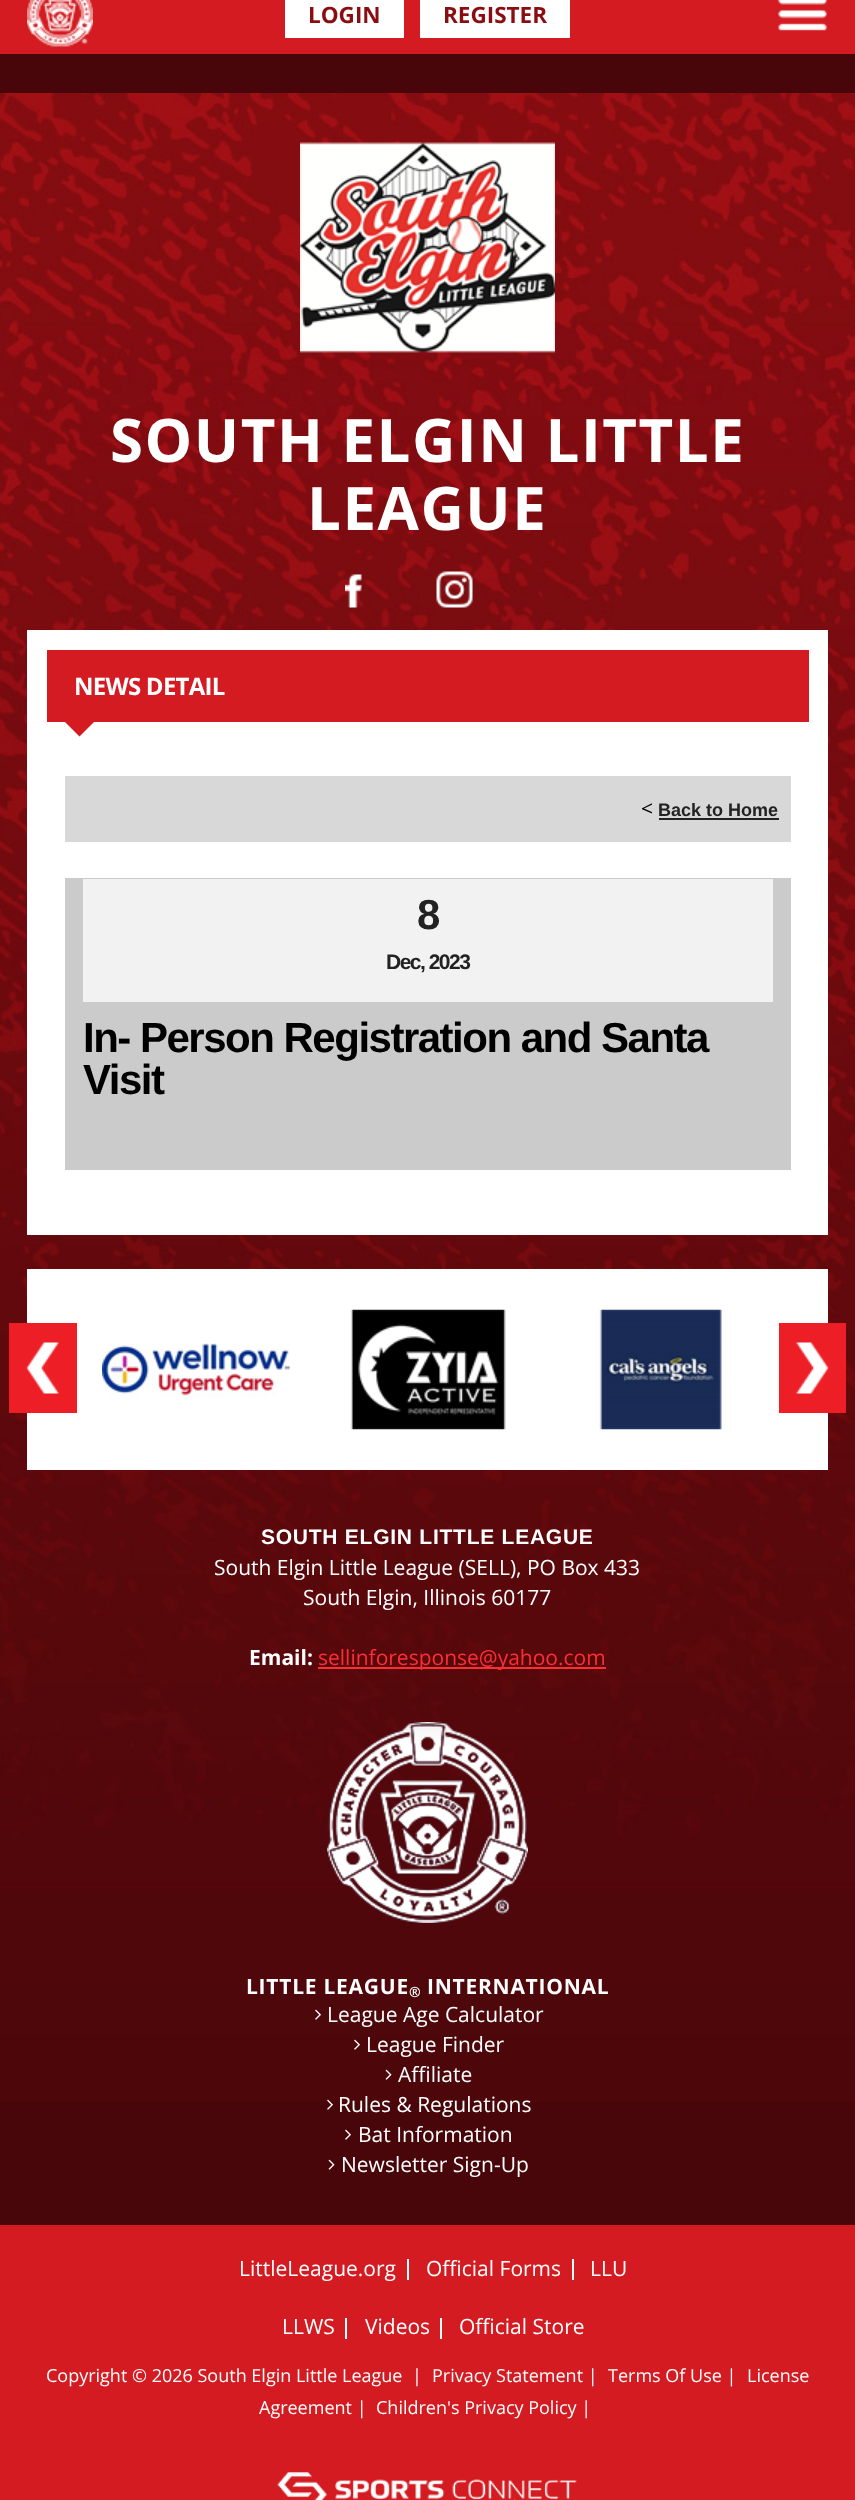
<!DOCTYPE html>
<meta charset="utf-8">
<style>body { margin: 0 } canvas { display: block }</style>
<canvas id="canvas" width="855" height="2500"></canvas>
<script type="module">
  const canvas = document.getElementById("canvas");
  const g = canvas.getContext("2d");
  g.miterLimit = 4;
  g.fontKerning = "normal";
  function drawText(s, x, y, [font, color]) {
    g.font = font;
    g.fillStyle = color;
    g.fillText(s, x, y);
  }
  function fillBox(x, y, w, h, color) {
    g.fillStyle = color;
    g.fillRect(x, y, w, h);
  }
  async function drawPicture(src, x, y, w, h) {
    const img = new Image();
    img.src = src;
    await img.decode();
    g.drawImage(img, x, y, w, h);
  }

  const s1 = ["bold 22.5px Open Sans", "#8A0D12"];
  const s2 = ["bold 60px Open Sans", "#FFFFFF"];
  const s3 = ["bold 24px Open Sans", "#FFFFFF"];
  const s4 = ["21px Open Sans", "#000000"];
  const s5 = ["bold 18px Liberation Sans", "#222222"];
  const s6 = ["bold 42px Liberation Sans", "#222222"];
  const s7 = ["bold 21px Liberation Sans", "#222222"];
  const s8 = ["bold 42px Liberation Sans", "#000000"];
  const s9 = ["bold 21px Liberation Sans", "#FFFFFF"];
  const s10 = ["21px Open Sans", "#FFFFFF"];
  const s11 = ["bold 21px Open Sans", "#FFFFFF"];
  const s12 = ["21px Open Sans", "#FF2E36"];
  const s13 = ["bold 14px Open Sans", "#FFFFFF"];
  const s14 = ["18px Open Sans", "#FFFFFF"];

  fillBox(0, 0, 855, 2500, "#48060A");
  await drawPicture("pic1.png", 0, 93, 855, 2009);
  fillBox(0, 0, 855, 54, "#D41B21");
  await drawPicture("pic2.png", 27, 0, 66, 47);
  fillBox(285, 0, 119, 38, "#FFFFFF");
  drawText("LOGIN", 308, 23, s1);
  fillBox(420, 0, 150, 38, "#FFFFFF");
  drawText("REGISTER", 443, 23, s1);
  await drawPicture("pic3.png", 778, 0, 49, 31);
  await drawPicture("pic4.png", 300, 142, 255, 211);
  g.letterSpacing = "1.5px";
  drawText("SOUTH ELGIN LITTLE", 110, 462, s2);
  drawText("LEAGUE", 307, 530, s2);
  await drawPicture("pic5.png", 345, 574, 17, 34);
  await drawPicture("pic6.png", 436, 571, 37, 37);
  fillBox(27, 630, 801, 605, "#FFFFFF");
  fillBox(47, 650, 762, 72, "#D41B21");
  g.letterSpacing = "-0.75px";
  drawText("NEWS DETAIL", 74, 695, s3);
  g.fillStyle = "#D41B21";
  g.beginPath();
  g.moveTo(64.5, 721.5);
  g.lineTo(94.5, 721.5);
  g.lineTo(79.5, 736.5);
  g.closePath();
  g.fill();
  fillBox(65, 776, 726, 66, "#D8D8D8");
  g.letterSpacing = "0px";
  drawText("<", 641, 816, s4);
  drawText("Back to Home", 658, 816, s5);
  fillBox(659, 818, 120, 2, "#222222");
  fillBox(65, 878, 726, 292, "#CBCBCB");
  fillBox(83, 879, 690, 123, "#F2F2F2");
  g.letterSpacing = "-1.5px";
  drawText("8", 417, 929, s6);
  drawText("Dec, 2023", 386, 969, s7);
  drawText("In- Person Registration and Santa", 83, 1052, s8);
  drawText("Visit", 83, 1094, s8);
  fillBox(27, 1269, 801, 201, "#FFFFFF");
  fillBox(9, 1323, 68, 90, "#ED1E26");
  await drawPicture("pic7.png", 26, 1342, 33, 52);
  await drawPicture("pic8.png", 102, 1343, 188, 55);
  await drawPicture("pic9.png", 350, 1309, 156, 121);
  await drawPicture("pic10.png", 599, 1309, 123, 121);
  fillBox(779, 1323, 67, 90, "#ED1E26");
  await drawPicture("pic11.png", 796, 1342, 33, 52);
  g.letterSpacing = "0.75px";
  drawText("SOUTH ELGIN LITTLE LEAGUE", 261, 1544, s9);
  g.letterSpacing = "0px";
  drawText("South Elgin Little League (SELL), PO Box 433", 214, 1575, s10);
  drawText("South Elgin, Illinois 60177", 303, 1605, s10);
  drawText("Email:", 249, 1665, s11);
  fillBox(318, 1667, 288, 2, "#FF2E36");
  drawText("sellinforesponse@yahoo.com", 318, 1665, s12);
  await drawPicture("pic12.png", 327, 1722, 201, 201);
  g.letterSpacing = "0.75px";
  drawText("LITTLE LEAGUE", 246, 1994, s11);
  drawText("®", 409, 1997, s13);
  drawText("INTERNATIONAL", 427, 1994, s11);
  await drawPicture("pic13.png", 315, 2009, 6, 11);
  g.letterSpacing = "0px";
  drawText("League Age Calculator", 327, 2022, s10);
  await drawPicture("pic14.png", 354, 2039, 6, 11);
  drawText("League Finder", 366, 2052, s10);
  await drawPicture("pic15.png", 385, 2069, 7, 11);
  drawText("Affiliate", 398, 2082, s10);
  await drawPicture("pic16.png", 327, 2099, 6, 11);
  drawText("Rules & Regulations", 338, 2112, s10);
  await drawPicture("pic17.png", 345, 2129, 6, 11);
  drawText("Bat Information", 358, 2142, s10);
  await drawPicture("pic18.png", 328, 2159, 7, 11);
  drawText("Newsletter Sign-Up", 341, 2172, s10);
  fillBox(0, 2225, 855, 275, "#D41B21");
  drawText("LittleLeague.org", 239, 2276, s10);
  fillBox(407, 2259, 2, 21, "#FFFFFF");
  drawText("Official Forms", 426, 2276, s10);
  fillBox(572, 2259, 2, 21, "#FFFFFF");
  drawText("LLU", 590, 2276, s10);
  drawText("LLWS", 282, 2334, s10);
  fillBox(345, 2318, 2, 21, "#FFFFFF");
  drawText("Videos", 365, 2334, s10);
  fillBox(440, 2318, 2, 21, "#FFFFFF");
  drawText("Official Store", 459, 2334, s10);
  drawText("Copyright © 2026 South Elgin Little League", 46, 2382, s14);
  drawText("|", 412, 2382, s14);
  drawText("Privacy Statement |", 432, 2382, s14);
  drawText("Terms Of Use |", 608, 2382, s14);
  drawText("License", 747, 2382, s14);
  drawText("Agreement |", 259, 2414, s14);
  drawText("Children's Privacy Policy |", 376, 2414, s14);
  await drawPicture("pic19.png", 277, 2472, 300, 28);
</script>
